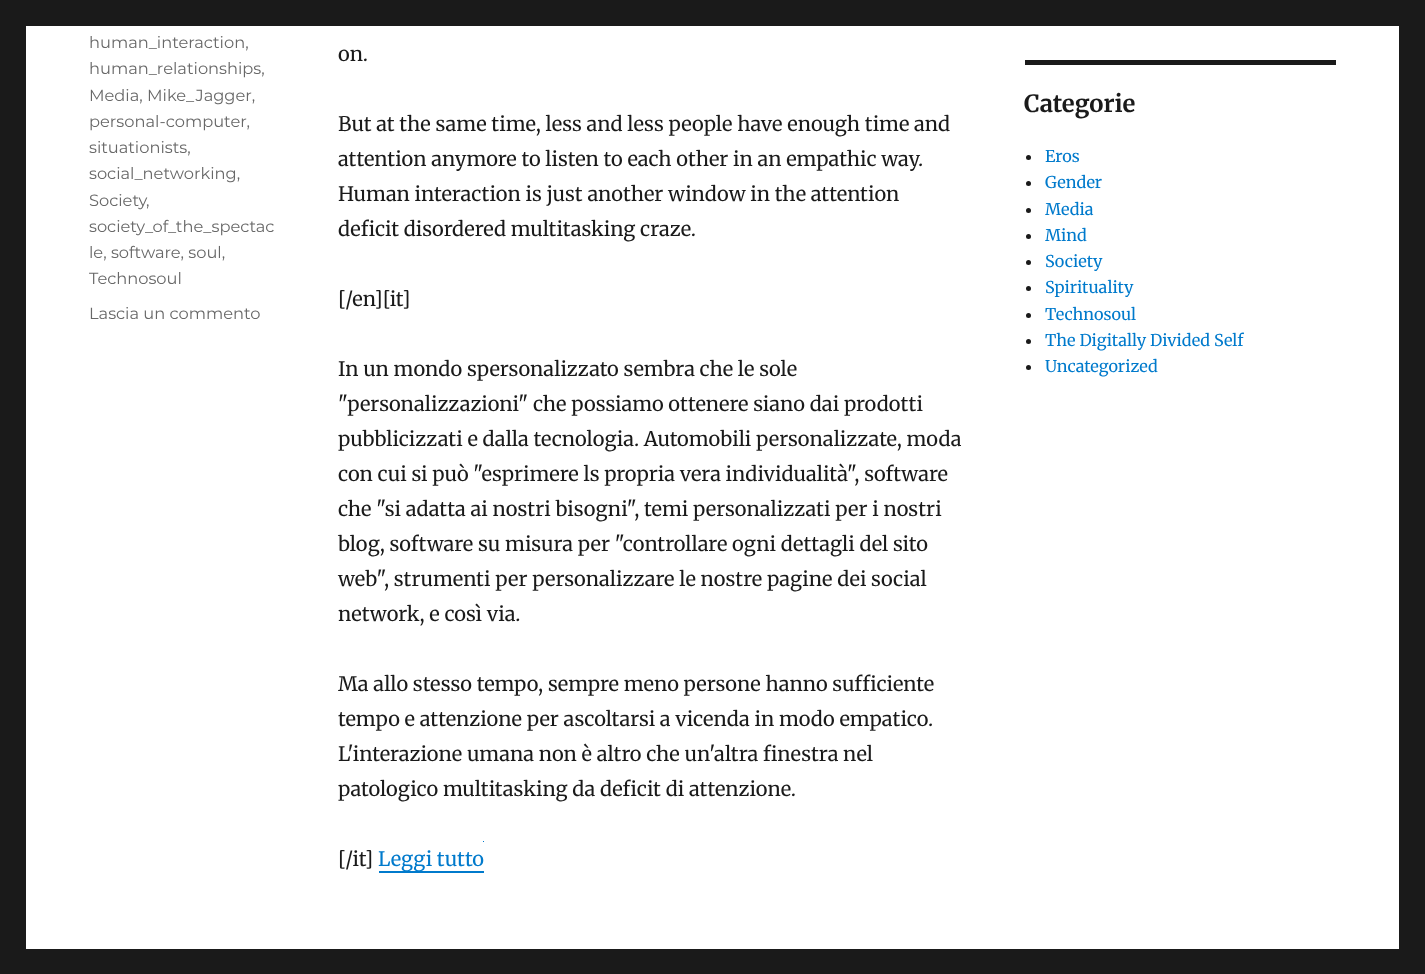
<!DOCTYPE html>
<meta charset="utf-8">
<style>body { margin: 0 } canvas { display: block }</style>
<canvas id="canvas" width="1425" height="974"></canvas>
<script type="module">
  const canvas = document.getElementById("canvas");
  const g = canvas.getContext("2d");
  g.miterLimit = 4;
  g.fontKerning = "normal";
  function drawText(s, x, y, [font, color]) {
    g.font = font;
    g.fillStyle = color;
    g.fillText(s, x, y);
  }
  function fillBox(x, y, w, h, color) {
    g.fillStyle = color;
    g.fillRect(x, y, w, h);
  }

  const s1 = ["16.25px Montserrat", "#686868"];
  const s2 = ["20px Merriweather", "#1A1A1A"];
  const s3 = ["20px Merriweather", "#007ACC"];
  const s4 = ["bold 23.75px Merriweather", "#1A1A1A"];
  const s5 = ["16.25px Merriweather", "#007ACC"];

  fillBox(0, 0, 1425, 974, "#1A1A1A");
  fillBox(26, 26, 1373, 923, "#FFFFFF");
  drawText("human_interaction,", 89, 48, s1);
  drawText("human_relationships,", 89, 74, s1);
  drawText("Media, Mike_Jagger,", 89, 101, s1);
  drawText("personal-computer,", 89, 127, s1);
  drawText("situationists,", 89, 153, s1);
  drawText("social_networking,", 89, 179, s1);
  drawText("Society", 89, 206, s1);
  drawText(",", 146, 206, s1);
  drawText("society_of_the_spectac", 89, 232, s1);
  drawText("le, software, soul,", 89, 258, s1);
  drawText("Technosoul", 89, 284, s1);
  drawText("Lascia un commento", 89, 319, s1);
  drawText("on.", 338, 61, s2);
  drawText("But at the same time, less and less people have enough time and", 338, 131, s2);
  drawText("attention anymore to listen to each other in an empathic way.", 338, 166, s2);
  drawText("Human interaction is just another window in the attention", 338, 201, s2);
  drawText("deficit disordered multitasking craze.", 338, 236, s2);
  drawText("[/en][it]", 338, 306, s2);
  drawText("In un mondo spersonalizzato sembra che le sole", 338, 376, s2);
  drawText("\"personalizzazioni\" che possiamo ottenere siano dai prodotti", 338, 411, s2);
  drawText("pubblicizzati e dalla tecnologia. Automobili personalizzate, moda", 338, 446, s2);
  drawText("con cui si può \"esprimere ls propria vera individualità\", software", 338, 481, s2);
  drawText("che \"si adatta ai nostri bisogni\", temi personalizzati per i nostri", 338, 516, s2);
  drawText("blog, software su misura per \"controllare ogni dettagli del sito", 338, 551, s2);
  drawText("web\", strumenti per personalizzare le nostre pagine dei social", 338, 586, s2);
  drawText("network, e così via.", 338, 621, s2);
  drawText("Ma allo stesso tempo, sempre meno persone hanno sufficiente", 338, 691, s2);
  drawText("tempo e attenzione per ascoltarsi a vicenda in modo empatico.", 338, 726, s2);
  drawText("L'interazione umana non è altro che un'altra finestra nel", 338, 761, s2);
  drawText("patologico multitasking da deficit di attenzione.", 338, 796, s2);
  drawText("[/it]", 338, 866, s2);
  g.fillStyle = "#007ACC";
  g.beginPath();
  g.moveTo(379, 871);
  g.lineTo(379, 873);
  g.lineTo(484, 873);
  g.lineTo(484, 848);
  g.lineTo(484, 871);
  g.closePath();
  g.fill();
  drawText("Leggi tutto", 378, 866, s3);
  fillBox(483, 841, 1, 1, "#007ACC");
  fillBox(1025, 60, 311, 5, "#1A1A1A");
  drawText("Categorie", 1024, 112, s4);
  g.beginPath();
  g.arc(1028.5, 157.5, 2.5, 0, Math.PI * 2);
  g.fill();
  drawText("Eros", 1045, 162, s5);
  g.fillStyle = "#1A1A1A";
  g.beginPath();
  g.arc(1028.5, 183.5, 2.5, 0, Math.PI * 2);
  g.fill();
  drawText("Gender", 1045, 188, s5);
  g.fillStyle = "#1A1A1A";
  g.beginPath();
  g.arc(1028.5, 210.5, 2.5, 0, Math.PI * 2);
  g.fill();
  drawText("Media", 1045, 215, s5);
  g.fillStyle = "#1A1A1A";
  g.beginPath();
  g.arc(1028.5, 236.5, 2.5, 0, Math.PI * 2);
  g.fill();
  drawText("Mind", 1045, 241, s5);
  g.fillStyle = "#1A1A1A";
  g.beginPath();
  g.arc(1028.5, 262.5, 2.5, 0, Math.PI * 2);
  g.fill();
  drawText("Society", 1045, 267, s5);
  g.fillStyle = "#1A1A1A";
  g.beginPath();
  g.arc(1028.5, 288.5, 2.5, 0, Math.PI * 2);
  g.fill();
  drawText("Spirituality", 1045, 293, s5);
  g.fillStyle = "#1A1A1A";
  g.beginPath();
  g.arc(1028.5, 315.5, 2.5, 0, Math.PI * 2);
  g.fill();
  drawText("Technosoul", 1045, 320, s5);
  g.fillStyle = "#1A1A1A";
  g.beginPath();
  g.arc(1028.5, 341.5, 2.5, 0, Math.PI * 2);
  g.fill();
  drawText("The Digitally Divided Self", 1045, 346, s5);
  g.fillStyle = "#1A1A1A";
  g.beginPath();
  g.arc(1028.5, 367.5, 2.5, 0, Math.PI * 2);
  g.fill();
  drawText("Uncategorized", 1045, 372, s5);
</script>
